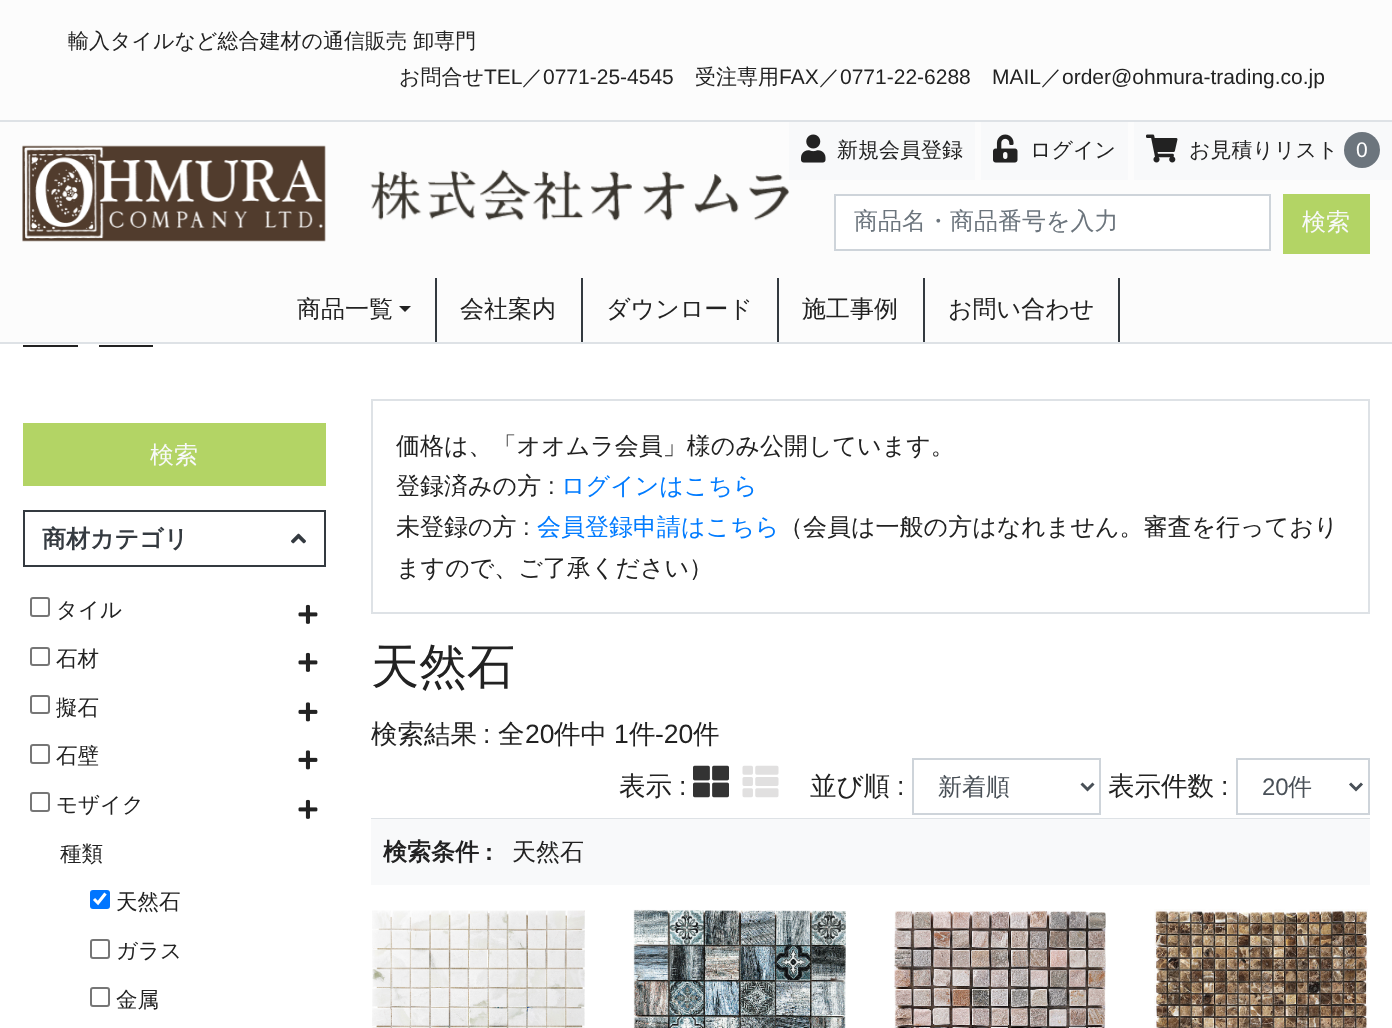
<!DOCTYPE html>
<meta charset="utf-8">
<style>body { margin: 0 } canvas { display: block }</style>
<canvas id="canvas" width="1392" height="1028"></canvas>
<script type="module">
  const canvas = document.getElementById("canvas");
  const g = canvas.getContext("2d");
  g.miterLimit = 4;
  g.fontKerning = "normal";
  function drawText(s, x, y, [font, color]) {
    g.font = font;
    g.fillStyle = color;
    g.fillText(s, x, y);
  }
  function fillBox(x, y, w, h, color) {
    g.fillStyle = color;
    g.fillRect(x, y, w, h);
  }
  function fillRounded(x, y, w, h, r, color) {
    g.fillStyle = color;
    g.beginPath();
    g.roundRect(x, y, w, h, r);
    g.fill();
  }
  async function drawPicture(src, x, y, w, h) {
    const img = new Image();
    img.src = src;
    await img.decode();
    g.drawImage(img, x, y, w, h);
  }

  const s1 = ["500 21px WenQuanYi Zen Hei", "#222222"];
  const s2 = ["21px Liberation Sans", "#222222"];
  const s3 = ["21px Liberation Sans", "#FFFFFF"];
  const s4 = ["500 24px WenQuanYi Zen Hei", "#6C757D"];
  const s5 = ["500 24px WenQuanYi Zen Hei", "#F8F9FA"];
  const s6 = ["500 24px WenQuanYi Zen Hei", "#222222"];
  const s7 = ["bold 24px WenQuanYi Zen Hei", "#343A40"];
  const s8 = ["500 21.5px WenQuanYi Zen Hei", "#222222"];
  const s9 = ["24px Liberation Sans", "#222222"];
  const s10 = ["500 24px WenQuanYi Zen Hei", "#007BFF"];
  const s11 = ["500 48px WenQuanYi Zen Hei", "#222222"];
  const s12 = ["500 26.5px WenQuanYi Zen Hei", "#222222"];
  const s13 = ["26.5px Liberation Sans", "#222222"];
  const s14 = ["500 24px WenQuanYi Zen Hei", "#495057"];
  const s15 = ["24px Liberation Sans", "#495057"];
  const s16 = ["bold 24px WenQuanYi Zen Hei", "#222222"];
  const s17 = ["bold 24px Liberation Sans", "#222222"];

  fillBox(0, 0, 1392, 1028, "#FFFFFF");
  fillBox(0, 0, 1392, 342, "#FCFCFC");
  fillBox(0, 342, 1392, 2, "#DEE2E6");
  fillBox(0, 120, 1392, 2, "#DEE2E6");
  drawText("輸入タイルなど総合建材の通信販売 卸専門", 68, 48, s1);
  drawText("お問合せ", 399, 84, s1);
  drawText("TEL", 484, 84, s2);
  drawText("／", 522, 84, s1);
  drawText("0771-25-4545", 543, 84, s2);
  drawText("受注専用", 695, 84, s1);
  drawText("FAX", 779, 84, s2);
  drawText("／", 819, 84, s1);
  drawText("0771-22-6288", 840, 84, s2);
  drawText("MAIL", 992, 84, s2);
  drawText("／", 1041, 84, s1);
  drawText("order@ohmura-trading.co.jp", 1062, 84, s2);
  await drawPicture("pic1.png", 22, 145, 304, 97);
  fillBox(789, 122, 186, 58, "#F8F9FA");
  await drawPicture("pic2.png", 370, 169, 420, 52);
  await drawPicture("pic3.png", 801, 134, 25, 29);
  drawText("新規会員登録", 837, 157, s1);
  fillBox(981, 122, 147, 58, "#F8F9FA");
  await drawPicture("pic4.png", 993, 134, 25, 29);
  drawText("ログイン", 1030, 157, s1);
  fillBox(1134, 122, 258, 58, "#F8F9FA");
  await drawPicture("pic5.png", 1146, 134, 32, 29);
  drawText("お見積りリスト", 1189, 157, s1);
  g.fillStyle = "#6C757D";
  g.beginPath();
  g.arc(1362, 150, 18, 0, Math.PI * 2);
  g.fill();
  drawText("0", 1356, 157, s3);
  g.beginPath();
  g.rect(835, 195, 435, 55);
  g.fill();
  g.strokeStyle = "#CED4DA";
  g.lineWidth = 2;
  g.stroke();
  drawText("商品名・商品番号を入力", 854, 229, s4);
  fillBox(1283, 194, 87, 60, "#B3D465");
  drawText("検索", 1302, 230, s5);
  fillBox(435, 278, 2, 64, "#343A40");
  drawText("商品一覧", 297, 317, s6);
  g.beginPath();
  g.moveTo(399, 306);
  g.lineTo(411, 306);
  g.lineTo(405, 312);
  g.closePath();
  g.fill();
  fillBox(581, 278, 2, 64, "#343A40");
  drawText("会社案内", 460, 317, s6);
  fillBox(777, 278, 2, 64, "#343A40");
  drawText("ダウンロード", 606, 317, s6);
  fillBox(923, 278, 2, 64, "#343A40");
  drawText("施工事例", 802, 317, s6);
  fillBox(1118, 278, 2, 64, "#343A40");
  drawText("お問い合わせ", 948, 317, s6);
  fillBox(23, 345, 55, 2, "#222222");
  fillBox(99, 345, 54, 2, "#222222");
  fillBox(23, 423, 303, 63, "#B3D465");
  drawText("検索", 150, 463, s5);
  g.strokeStyle = "#343A40";
  g.strokeRect(24, 511, 301, 55);
  drawText("商材カテゴリ", 42, 547, s7);
  await drawPicture("pic6.png", 291, 533, 15, 11);
  g.beginPath();
  g.roundRect(31, 598, 18, 18, 2);
  g.strokeStyle = "#767676";
  g.stroke();
  drawText("タイル", 56, 617, s8);
  await drawPicture("pic7.png", 298, 604, 20, 20);
  g.beginPath();
  g.roundRect(31, 648, 18, 17, 2);
  g.stroke();
  drawText("石材", 56, 666, s8);
  await drawPicture("pic7.png", 298, 652, 20, 20);
  g.beginPath();
  g.roundRect(31, 696, 18, 17, 2);
  g.stroke();
  drawText("擬石", 56, 715, s8);
  await drawPicture("pic8.png", 298, 702, 20, 20);
  g.beginPath();
  g.roundRect(31, 745, 18, 18, 2);
  g.stroke();
  drawText("石壁", 56, 763, s8);
  await drawPicture("pic8.png", 298, 750, 20, 20);
  g.beginPath();
  g.roundRect(31, 793, 18, 18, 2);
  g.stroke();
  drawText("モザイク", 56, 812, s8);
  await drawPicture("pic7.png", 298, 799, 20, 20);
  drawText("種類", 60, 861, s8);
  fillRounded(90, 890, 20, 19, 3, "#0075FF");
  g.beginPath();
  g.moveTo(94, 899);
  g.lineTo(98, 903);
  g.lineTo(105.5, 893.5);
  g.strokeStyle = "#FFFFFF";
  g.lineWidth = 3.1;
  g.stroke();
  drawText("天然石", 116, 909, s8);
  g.beginPath();
  g.roundRect(91, 940, 18, 18, 2);
  g.strokeStyle = "#767676";
  g.lineWidth = 2;
  g.stroke();
  drawText("ガラス", 116, 958, s8);
  g.beginPath();
  g.roundRect(91, 988, 18, 18, 2);
  g.stroke();
  drawText("金属", 116, 1007, s8);
  g.strokeStyle = "#DEE2E6";
  g.strokeRect(372, 400, 997, 213);
  drawText("価格は、「オオムラ会員」様のみ公開しています。", 396, 454, s6);
  drawText("登録済みの方", 396, 494, s6);
  drawText(":", 548, 494, s9);
  drawText("ログインはこちら", 561, 494, s10);
  drawText("未登録の方", 396, 535, s6);
  drawText(":", 523, 535, s9);
  drawText("会員登録申請はこちら", 537, 535, s10);
  drawText("（会員は一般の方はなれません。審査を行っており", 779, 535, s6);
  drawText("ますので、ご了承ください）", 396, 576, s6);
  drawText("天然石", 371, 683, s11);
  fillBox(371, 818, 999, 1, "#DEE2E6");
  drawText("検索結果", 371, 743, s12);
  drawText(":", 483, 743, s13);
  drawText("全", 498, 743, s12);
  drawText("20", 525, 743, s13);
  drawText("件中", 554, 743, s12);
  drawText("1", 614, 743, s13);
  drawText("件", 629, 743, s12);
  drawText("-20", 655, 743, s13);
  drawText("件", 693, 743, s12);
  drawText("表示", 619, 795, s12);
  drawText(":", 679, 795, s13);
  await drawPicture("pic9.png", 693, 765, 36, 33);
  await drawPicture("pic10.png", 742, 765, 37, 33);
  drawText("並び順", 810, 795, s12);
  drawText(":", 897, 795, s13);
  g.strokeStyle = "#CED4DA";
  g.strokeRect(913, 759, 187, 55);
  g.beginPath();
  g.moveTo(1081.5, 783.5);
  g.lineTo(1087.5, 789.5);
  g.lineTo(1093.5, 783.5);
  g.strokeStyle = "#495057";
  g.lineWidth = 3;
  g.stroke();
  drawText("新着順", 938, 795, s14);
  drawText("表示件数", 1108, 795, s12);
  drawText(":", 1221, 795, s13);
  g.strokeStyle = "#CED4DA";
  g.lineWidth = 2;
  g.strokeRect(1237, 759, 132, 55);
  g.beginPath();
  g.moveTo(1350, 783.5);
  g.lineTo(1356, 789.5);
  g.lineTo(1362, 783.5);
  g.strokeStyle = "#495057";
  g.lineWidth = 3;
  g.stroke();
  drawText("20", 1262, 795, s15);
  drawText("件", 1288, 795, s14);
  fillBox(371, 819, 999, 66, "#F8F9FA");
  drawText("検索条件", 383, 860, s16);
  drawText(":", 485, 860, s17);
  drawText("天然石", 512, 860, s6);
  await drawPicture("pic11.png", 372, 910, 213, 118);
  await drawPicture("pic12.png", 633, 909, 213, 119);
  await drawPicture("pic13.png", 894, 910, 212, 118);
  await drawPicture("pic14.png", 1154, 909, 214, 119);
</script>
